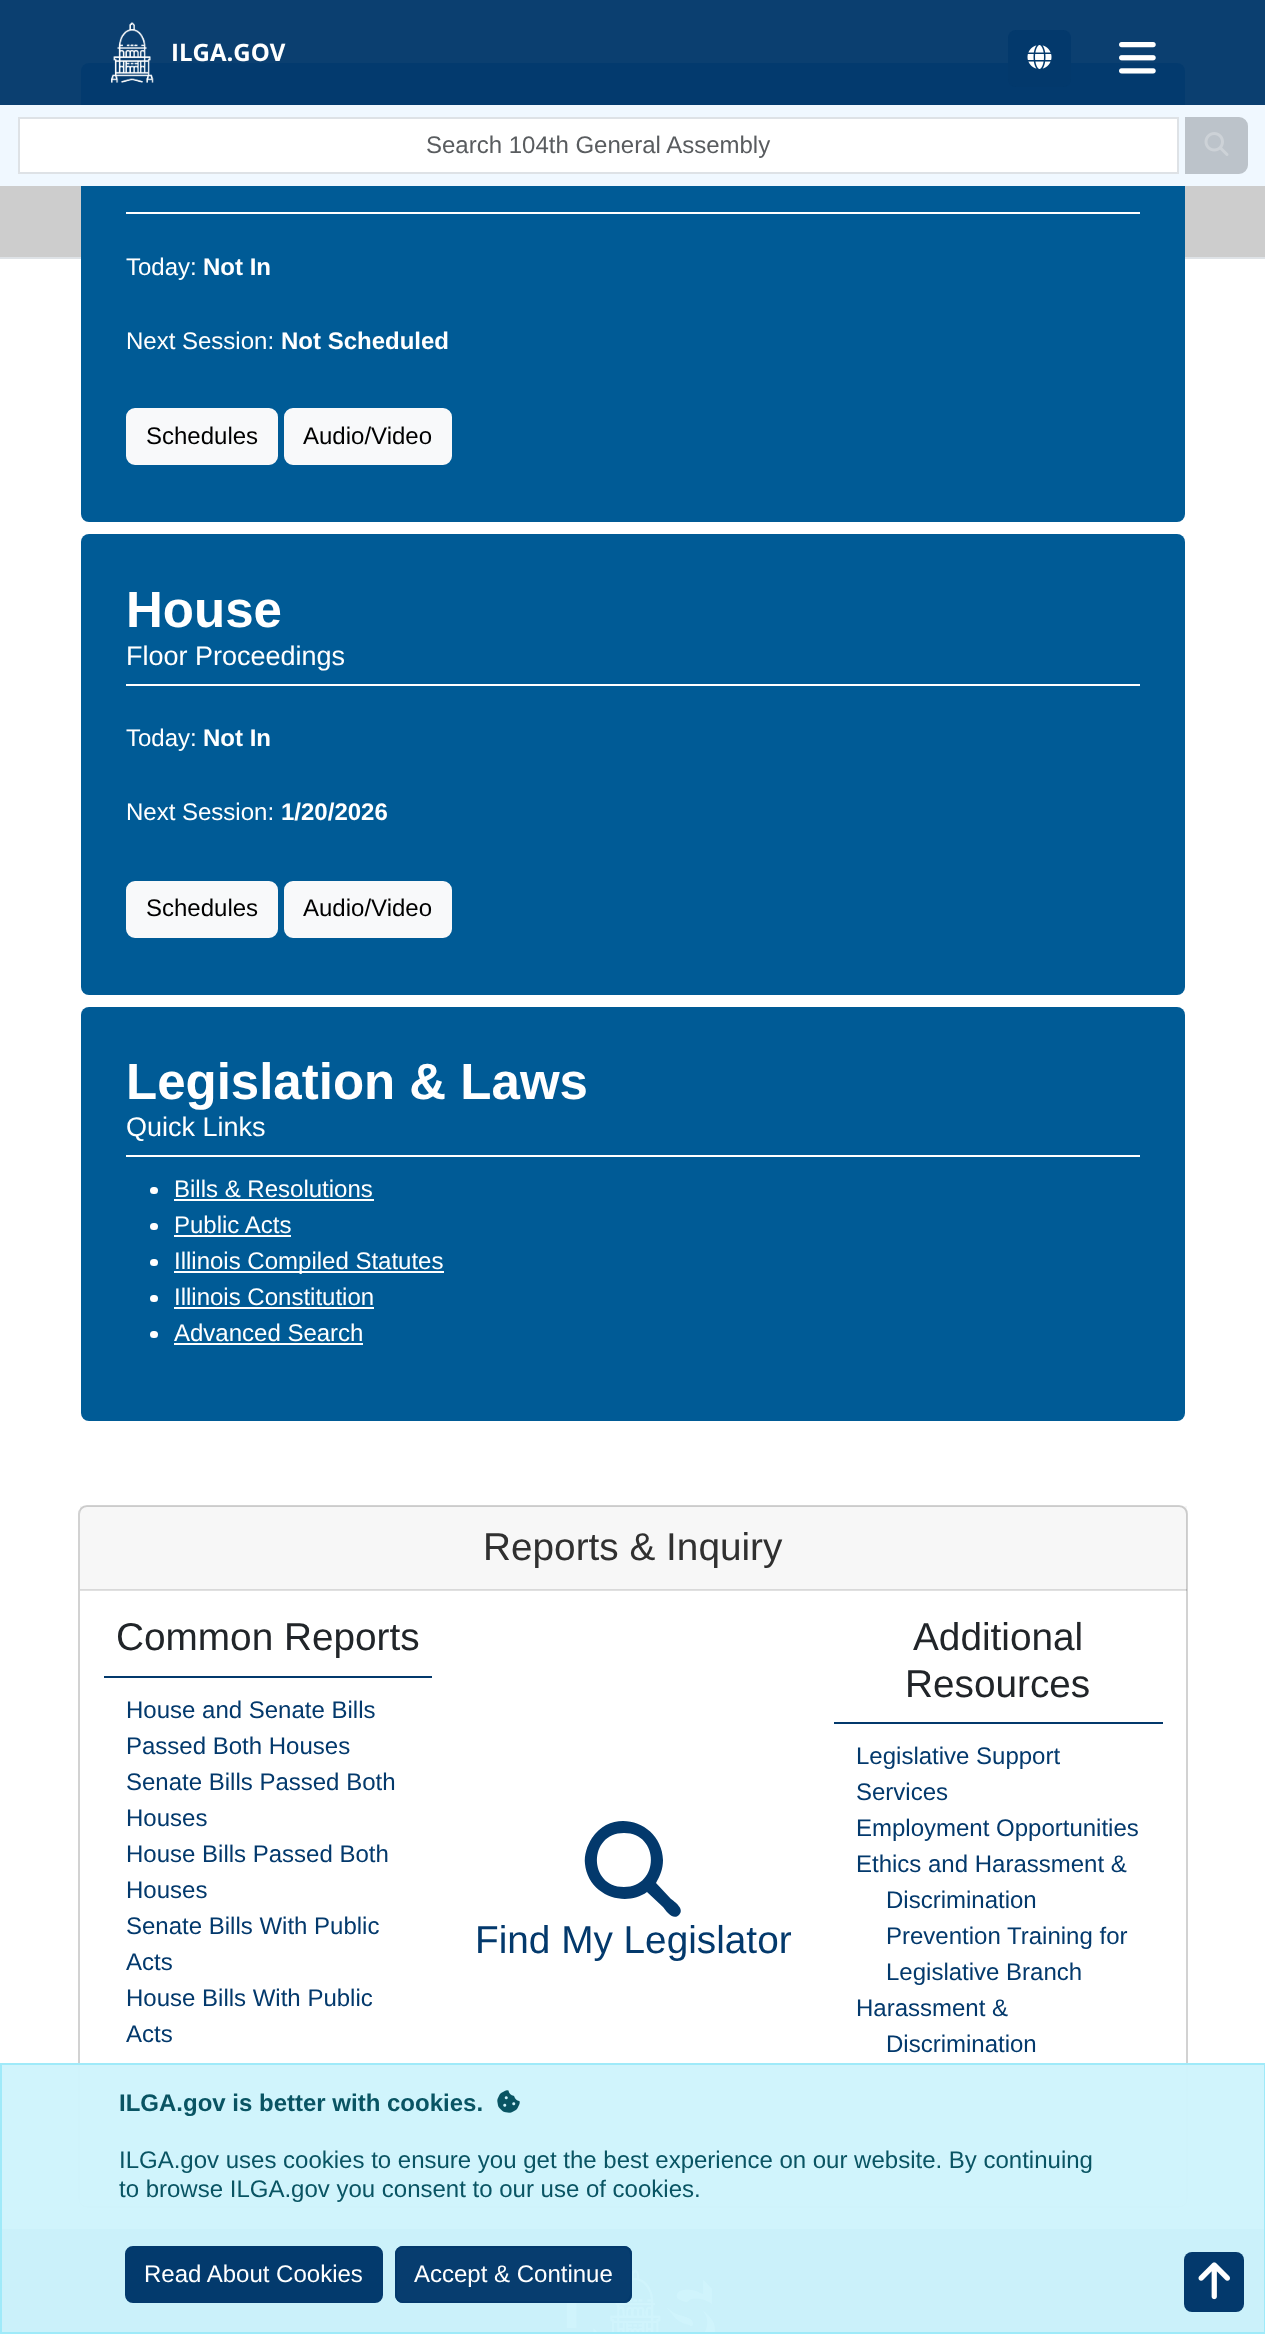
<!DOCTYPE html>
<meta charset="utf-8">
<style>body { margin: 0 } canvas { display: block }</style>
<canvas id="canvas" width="1265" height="2334"></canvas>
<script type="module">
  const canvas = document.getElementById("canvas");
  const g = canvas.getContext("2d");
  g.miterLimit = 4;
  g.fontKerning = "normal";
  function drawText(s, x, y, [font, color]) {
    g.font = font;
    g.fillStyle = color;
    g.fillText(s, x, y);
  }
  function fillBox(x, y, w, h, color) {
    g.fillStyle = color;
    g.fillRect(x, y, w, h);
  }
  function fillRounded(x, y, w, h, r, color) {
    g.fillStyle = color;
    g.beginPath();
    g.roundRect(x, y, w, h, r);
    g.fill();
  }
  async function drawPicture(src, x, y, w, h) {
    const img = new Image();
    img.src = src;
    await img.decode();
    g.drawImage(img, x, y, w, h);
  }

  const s1 = ["bold 24px Open Sans", "#FFFFFF"];
  const s2 = ["24px Liberation Sans", "#595C5F"];
  const s3 = ["24px Liberation Sans", "#FFFFFF"];
  const s4 = ["bold 24px Liberation Sans", "#FFFFFF"];
  const s5 = ["24px Liberation Sans", "#000000"];
  const s6 = ["bold 51px Liberation Sans", "#FFFFFF"];
  const s7 = ["27px Liberation Sans", "#FFFFFF"];
  const s8 = ["38.75px Liberation Sans", "#303030"];
  const s9 = ["38.75px Liberation Sans", "#212529"];
  const s10 = ["24px Liberation Sans", "#03396C"];
  const s11 = ["38.75px Liberation Sans", "#03396C"];
  const s12 = ["bold 24px Liberation Sans", "#095463"];
  const s13 = ["24px Liberation Sans", "#095463"];

  fillBox(0, 0, 1265, 2334, "#FFFFFF");
  fillBox(0, 257, 1265, 2, "#DEE2E6");
  fillBox(0, 0, 1265, 257, "#CDCDCD");
  fillRounded(81, 63, 1104, 459, 8, "#005B96");
  fillBox(0, 0, 1265, 105, "rgba(3, 57, 108, 0.96)");
  await drawPicture("pic1.png", 111, 22, 43, 61);
  drawText("ILGA.GOV", 171, 61, s1);
  fillRounded(1008, 30, 63, 57, 8, "#03396C");
  await drawPicture("pic2.png", 1027, 45, 25, 24);
  await drawPicture("pic3.png", 1119, 42, 37, 32);
  fillBox(0, 105, 1265, 81, "#F0F8FF");
  g.fillStyle = "#FFFFFF";
  g.beginPath();
  g.rect(19, 118, 1159, 55);
  g.fill();
  g.strokeStyle = "#DEE2E6";
  g.lineWidth = 2;
  g.stroke();
  drawText("Search 104th General Assembly", 426, 153, s2);
  g.fillStyle = "#BCC3CA";
  g.beginPath();
  g.roundRect(1186, 118, 61, 55, [0, 8, 8, 0]);
  g.fill();
  g.strokeStyle = "#BCC3CA";
  g.stroke();
  await drawPicture("pic4.png", 1204, 132, 25, 24);
  fillBox(126, 212, 1014, 2, "#FFFFFF");
  drawText("Today:", 126, 275, s3);
  drawText("Not In", 203, 275, s4);
  drawText("Next Session:", 126, 349, s3);
  drawText("Not Scheduled", 281, 349, s4);
  g.fillStyle = "#F8F9FA";
  g.beginPath();
  g.roundRect(127, 409, 150, 55, 8);
  g.fill();
  g.strokeStyle = "#F8F9FA";
  g.stroke();
  drawText("Schedules", 146, 444, s5);
  g.fillStyle = "#F8F9FA";
  g.beginPath();
  g.roundRect(285, 409, 166, 55, 8);
  g.fill();
  g.stroke();
  drawText("Audio/Video", 303, 444, s5);
  fillRounded(81, 534, 1104, 461, 8, "#005B96");
  drawText("House", 126, 627, s6);
  fillBox(126, 684, 1014, 2, "#FFFFFF");
  drawText("Floor Proceedings", 126, 665, s7);
  drawText("Today:", 126, 746, s3);
  drawText("Not In", 203, 746, s4);
  drawText("Next Session:", 126, 820, s3);
  drawText("1/20/2026", 281, 820, s4);
  g.fillStyle = "#F8F9FA";
  g.beginPath();
  g.roundRect(127, 882, 150, 55, 8);
  g.fill();
  g.stroke();
  drawText("Schedules", 146, 916, s5);
  g.fillStyle = "#F8F9FA";
  g.beginPath();
  g.roundRect(285, 882, 166, 55, 8);
  g.fill();
  g.stroke();
  drawText("Audio/Video", 303, 916, s5);
  fillRounded(81, 1007, 1104, 414, 8, "#005B96");
  drawText("Legislation & Laws", 126, 1099, s6);
  fillBox(126, 1155, 1014, 2, "#FFFFFF");
  drawText("Quick Links", 126, 1136, s7);
  fillRounded(150, 1187, 8, 7, 3.5, "#FFFFFF");
  drawText("Bills & Resolutions", 174, 1197, s3);
  fillBox(174, 1199, 200, 2, "#FFFFFF");
  fillRounded(150, 1223, 8, 7, 3.5, "#FFFFFF");
  drawText("Public Acts", 174, 1233, s3);
  fillBox(174, 1235, 117, 2, "#FFFFFF");
  fillRounded(150, 1259, 8, 7, 3.5, "#FFFFFF");
  fillBox(174, 1271, 270, 2, "#FFFFFF");
  drawText("Illinois Compiled Statutes", 174, 1269, s3);
  fillRounded(150, 1295, 8, 7, 3.5, "#FFFFFF");
  drawText("Illinois Constitution", 174, 1305, s3);
  fillBox(174, 1307, 200, 2, "#FFFFFF");
  fillRounded(150, 1331, 8, 7, 3.5, "#FFFFFF");
  drawText("Advanced Search", 174, 1341, s3);
  fillBox(174, 1343, 189, 2, "#FFFFFF");
  g.beginPath();
  g.roundRect(79, 1506, 1108, 701, 8);
  g.strokeStyle = "#D2D2D2";
  g.stroke();
  fillBox(80, 1506, 1107, 84, "rgba(0, 0, 0, 0.03)");
  fillBox(80, 1589, 1107, 2, "rgba(0, 0, 0, 0.12)");
  drawText("Reports & Inquiry", 483, 1560, s8);
  fillBox(104, 1676, 328, 2, "#03396C");
  drawText("Common Reports", 116, 1650, s9);
  drawText("House and Senate Bills", 126, 1718, s10);
  drawText("Passed Both Houses", 126, 1754, s10);
  drawText("Senate Bills Passed Both", 126, 1790, s10);
  drawText("Houses", 126, 1826, s10);
  drawText("House Bills Passed Both", 126, 1862, s10);
  drawText("Houses", 126, 1898, s10);
  drawText("Senate Bills With Public", 126, 1934, s10);
  drawText("Acts", 126, 1970, s10);
  drawText("House Bills With Public", 126, 2006, s10);
  drawText("Acts", 126, 2042, s10);
  g.beginPath();
  g.moveTo(663, 1860);
  g.bezierCurveTo(663, 1869, 660, 1876, 656, 1883);
  g.lineTo(671, 1899);
  g.bezierCurveTo(675, 1902, 685, 1909, 679, 1915);
  g.bezierCurveTo(673, 1921, 666, 1911, 663, 1907);
  g.lineTo(647, 1892);
  g.bezierCurveTo(633, 1902, 613, 1901, 599, 1890);
  g.bezierCurveTo(591, 1884, 586, 1874, 585, 1864);
  g.bezierCurveTo(584, 1855, 587, 1846, 592, 1838);
  g.bezierCurveTo(613, 1806, 662, 1822, 663, 1860);
  g.closePath();
  g.moveTo(624, 1887);
  g.bezierCurveTo(660, 1887, 660, 1833, 624, 1833);
  g.bezierCurveTo(588, 1833, 588, 1887, 624, 1887);
  g.closePath();
  g.fill();
  drawText("Find My Legislator", 475, 1953, s11);
  fillBox(834, 1722, 329, 2, "#03396C");
  drawText("Additional", 913, 1650, s9);
  drawText("Resources", 905, 1697, s9);
  drawText("Legislative Support", 856, 1764, s10);
  drawText("Services", 856, 1800, s10);
  drawText("Employment Opportunities", 856, 1836, s10);
  drawText("Ethics and Harassment &", 856, 1872, s10);
  drawText("Discrimination", 886, 1908, s10);
  drawText("Prevention Training for", 886, 1944, s10);
  drawText("Legislative Branch", 886, 1980, s10);
  drawText("Harassment &", 856, 2016, s10);
  drawText("Discrimination", 886, 2052, s10);
  fillBox(0, 2229, 1265, 105, "#005B96");
  await drawPicture("pic6.png", 566, 2269, 150, 65);
  fillBox(0, 2063, 1265, 271, "rgba(207, 244, 252, 0.98)");
  g.strokeStyle = "rgba(158, 234, 249, 0.98)";
  g.strokeRect(1, 2064, 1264, 269);
  drawText("ILGA.gov is better with cookies.", 119, 2111, s12);
  await drawPicture("pic5.png", 497, 2090, 23, 23);
  drawText("ILGA.gov uses cookies to ensure you get the best experience on our website. By continuing", 119, 2168, s13);
  drawText("to browse ILGA.gov you consent to our use of cookies.", 119, 2197, s13);
  g.fillStyle = "#033A6D";
  g.beginPath();
  g.roundRect(126, 2247, 256, 55, 7);
  g.fill();
  g.strokeStyle = "#033A6D";
  g.stroke();
  drawText("Read About Cookies", 144, 2282, s3);
  fillRounded(395, 2246, 237, 57, 8, "rgba(3, 57, 108, 0.98)");
  g.beginPath();
  g.roundRect(396, 2247, 235, 55, 7);
  g.strokeStyle = "rgba(3, 57, 108, 0.98)";
  g.stroke();
  drawText("Accept & Continue", 414, 2282, s3);
  fillRounded(1184, 2252, 60, 60, 8, "#03396C");
  await drawPicture("pic7.png", 1198, 2262, 32, 38);
</script>
